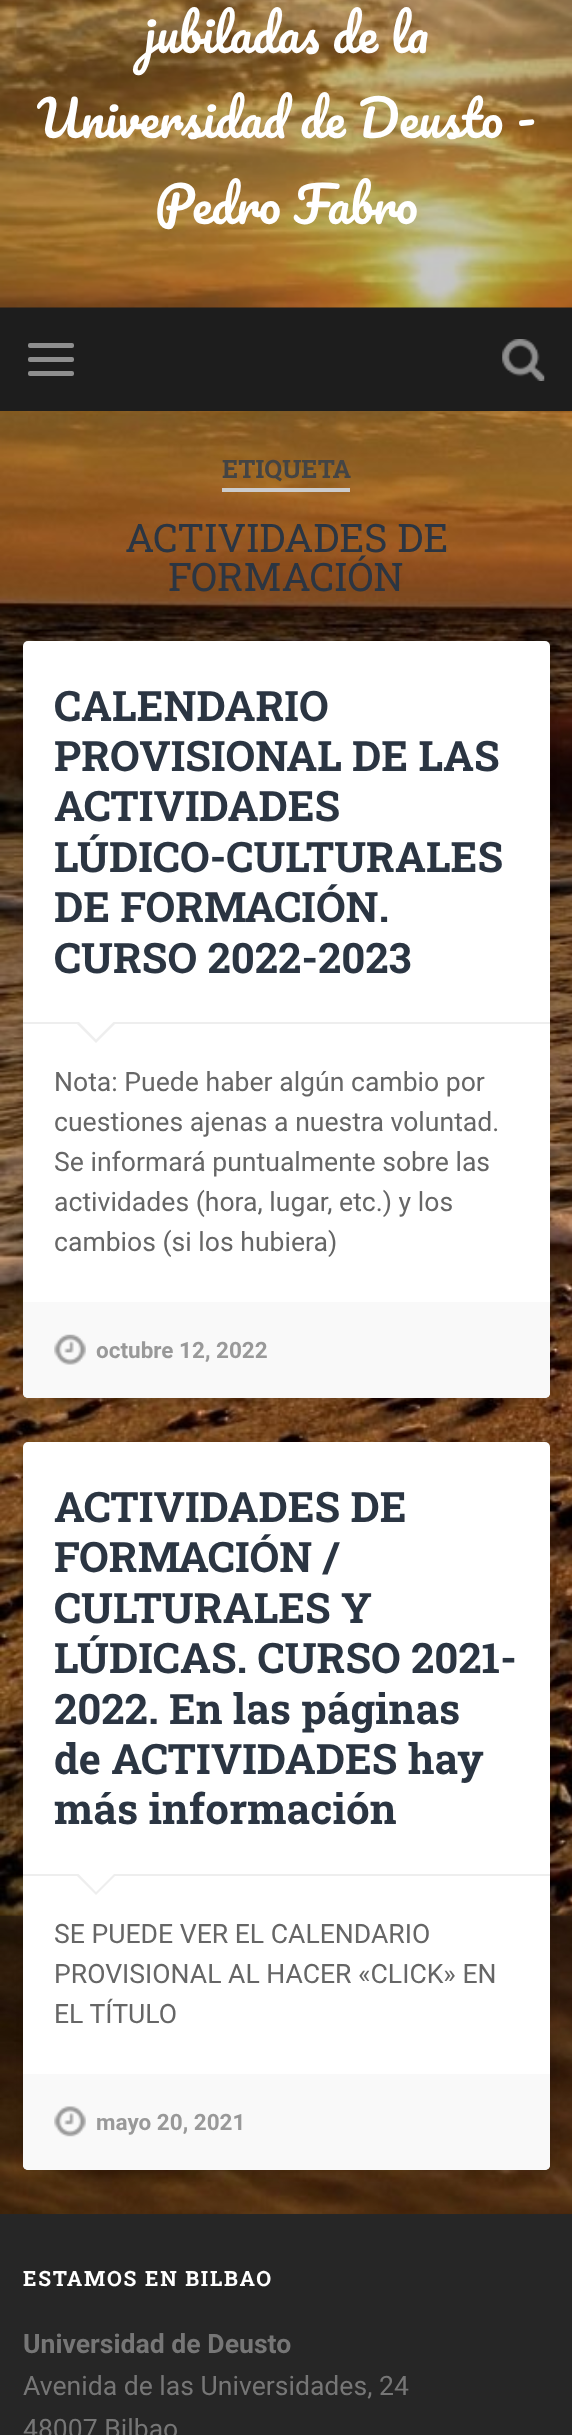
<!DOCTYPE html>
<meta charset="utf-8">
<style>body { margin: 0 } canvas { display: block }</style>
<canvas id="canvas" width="572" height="2435"></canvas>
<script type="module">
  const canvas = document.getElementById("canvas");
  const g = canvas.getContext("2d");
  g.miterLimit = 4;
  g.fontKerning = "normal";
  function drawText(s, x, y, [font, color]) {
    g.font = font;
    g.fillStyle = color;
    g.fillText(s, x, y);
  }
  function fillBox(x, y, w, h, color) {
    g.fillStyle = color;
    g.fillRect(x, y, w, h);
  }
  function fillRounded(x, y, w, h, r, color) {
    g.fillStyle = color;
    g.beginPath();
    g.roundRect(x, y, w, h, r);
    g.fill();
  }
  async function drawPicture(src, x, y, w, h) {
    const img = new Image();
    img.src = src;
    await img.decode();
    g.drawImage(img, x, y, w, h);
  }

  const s1 = ["49px Pacifico", "#FFFFFF"];
  const s2 = ["bold 25.25px Roboto Slab", "#444444"];
  const s3 = ["39.25px Roboto Slab", "#2B3542"];
  const s4 = ["bold 42px Roboto Slab", "#2B3542"];
  const s5 = ["26.6px Roboto", "#666666"];
  const s6 = ["bold 22.5px Roboto", "#999999"];
  const s7 = ["bold 21px Roboto Slab", "#FFFFFF"];
  const s8 = ["bold 26.6px Roboto", "#767676"];
  const s9 = ["26.6px Roboto", "#767676"];

  fillBox(0, 0, 572, 2435, "#FFFFFF");
  await drawPicture("pic1.png", 0, 411, 572, 1803);
  fillBox(0, 307, 572, 104, "#1D1D1D");
  await drawPicture("pic2.png", 0, 0, 572, 308);
  fillBox(0, 0, 572, 308, "rgba(29, 29, 29, 0.25)");
  drawText("jubiladas de la", 144, 53, s1);
  drawText("Universidad de Deusto -", 37, 138, s1);
  drawText("Pedro Fabro", 155, 224, s1);
  fillRounded(28, 343, 46, 5, 2, "#8E8E8E");
  fillRounded(28, 357, 46, 5, 2, "#8E8E8E");
  fillRounded(28, 371, 46, 5, 2, "#8E8E8E");
  await drawPicture("pic3.png", 502, 339, 43, 42);
  fillBox(222, 488, 128, 4, "#CCCCCC");
  drawText("ETIQUETA", 222, 478, s2);
  drawText("ACTIVIDADES DE", 125, 552, s3);
  drawText("FORMACIÓN", 168, 591, s3);
  g.fillStyle = "rgba(0, 0, 0, 0.1)";
  g.filter = "blur(3.5px)";
  g.beginPath();
  g.roundRect(23, 642, 527, 758, 5);
  g.fill();
  g.filter = "none";
  fillRounded(23, 641, 527, 757, 5, "#FFFFFF");
  fillBox(23, 1022, 527, 2, "#EEEEEE");
  drawText("CALENDARIO", 54, 721, s4);
  drawText("PROVISIONAL DE LAS", 54, 771, s4);
  drawText("ACTIVIDADES", 54, 821, s4);
  drawText("LÚDICO-CULTURALES", 54, 872, s4);
  drawText("DE FORMACIÓN.", 54, 922, s4);
  drawText("CURSO 2022-2023", 54, 973, s4);
  g.fillStyle = "#EEEEEE";
  g.beginPath();
  g.moveTo(75, 1022);
  g.lineTo(117, 1022);
  g.lineTo(96, 1043);
  g.closePath();
  g.fill();
  g.fillStyle = "#FFFFFF";
  g.beginPath();
  g.moveTo(77, 1020);
  g.lineTo(115.5, 1020);
  g.lineTo(96, 1039.5);
  g.closePath();
  g.fill();
  drawText("Nota: Puede haber algún cambio por", 54, 1091, s5);
  drawText("cuestiones ajenas a nuestra voluntad.", 54, 1131, s5);
  drawText("Se informará puntualmente sobre las", 54, 1171, s5);
  drawText("actividades (hora, lugar, etc.) y los", 54, 1211, s5);
  drawText("cambios (si los hubiera)", 54, 1251, s5);
  g.fillStyle = "#F9F9F9";
  g.beginPath();
  g.roundRect(23, 1302, 527, 96, [0, 0, 5, 5]);
  g.fill();
  await drawPicture("pic4.png", 54, 1334, 32, 31);
  drawText("octubre 12, 2022", 96, 1358, s6);
  g.fillStyle = "rgba(0, 0, 0, 0.1)";
  g.filter = "blur(3.5px)";
  g.beginPath();
  g.roundRect(23, 1444, 527, 728, 5);
  g.fill();
  g.filter = "none";
  fillRounded(23, 1442, 527, 728, 5, "#FFFFFF");
  fillBox(23, 1874, 527, 2, "#EEEEEE");
  drawText("ACTIVIDADES DE", 54, 1522, s4);
  drawText("FORMACIÓN /", 54, 1572, s4);
  drawText("CULTURALES Y", 54, 1623, s4);
  drawText("LÚDICAS. CURSO 2021-", 54, 1673, s4);
  drawText("2022. En las páginas", 54, 1724, s4);
  drawText("de ACTIVIDADES hay", 54, 1774, s4);
  drawText("más información", 54, 1824, s4);
  g.fillStyle = "#EEEEEE";
  g.beginPath();
  g.moveTo(75, 1874);
  g.lineTo(117, 1874);
  g.lineTo(96, 1895);
  g.closePath();
  g.fill();
  g.fillStyle = "#FFFFFF";
  g.beginPath();
  g.moveTo(77, 1872.5);
  g.lineTo(115.5, 1872.5);
  g.lineTo(96, 1892);
  g.closePath();
  g.fill();
  drawText("SE PUEDE VER EL CALENDARIO", 54, 1943, s5);
  drawText("PROVISIONAL AL HACER «CLICK» EN", 54, 1983, s5);
  drawText("EL TÍTULO", 54, 2023, s5);
  g.fillStyle = "#F9F9F9";
  g.beginPath();
  g.roundRect(23, 2074, 527, 96, [0, 0, 5, 5]);
  g.fill();
  await drawPicture("pic5.png", 54, 2106, 32, 31);
  drawText("mayo 20, 2021", 96, 2130, s6);
  fillBox(0, 2214, 572, 221, "#262626");
  g.letterSpacing = "1.75px";
  drawText("ESTAMOS EN BILBAO", 23, 2286, s7);
  g.letterSpacing = "0px";
  drawText("Universidad de Deusto", 23, 2353, s8);
  drawText("Avenida de las Universidades, 24", 23, 2395, s9);
  drawText("48007 Bilbao", 23, 2438, s9);
</script>
